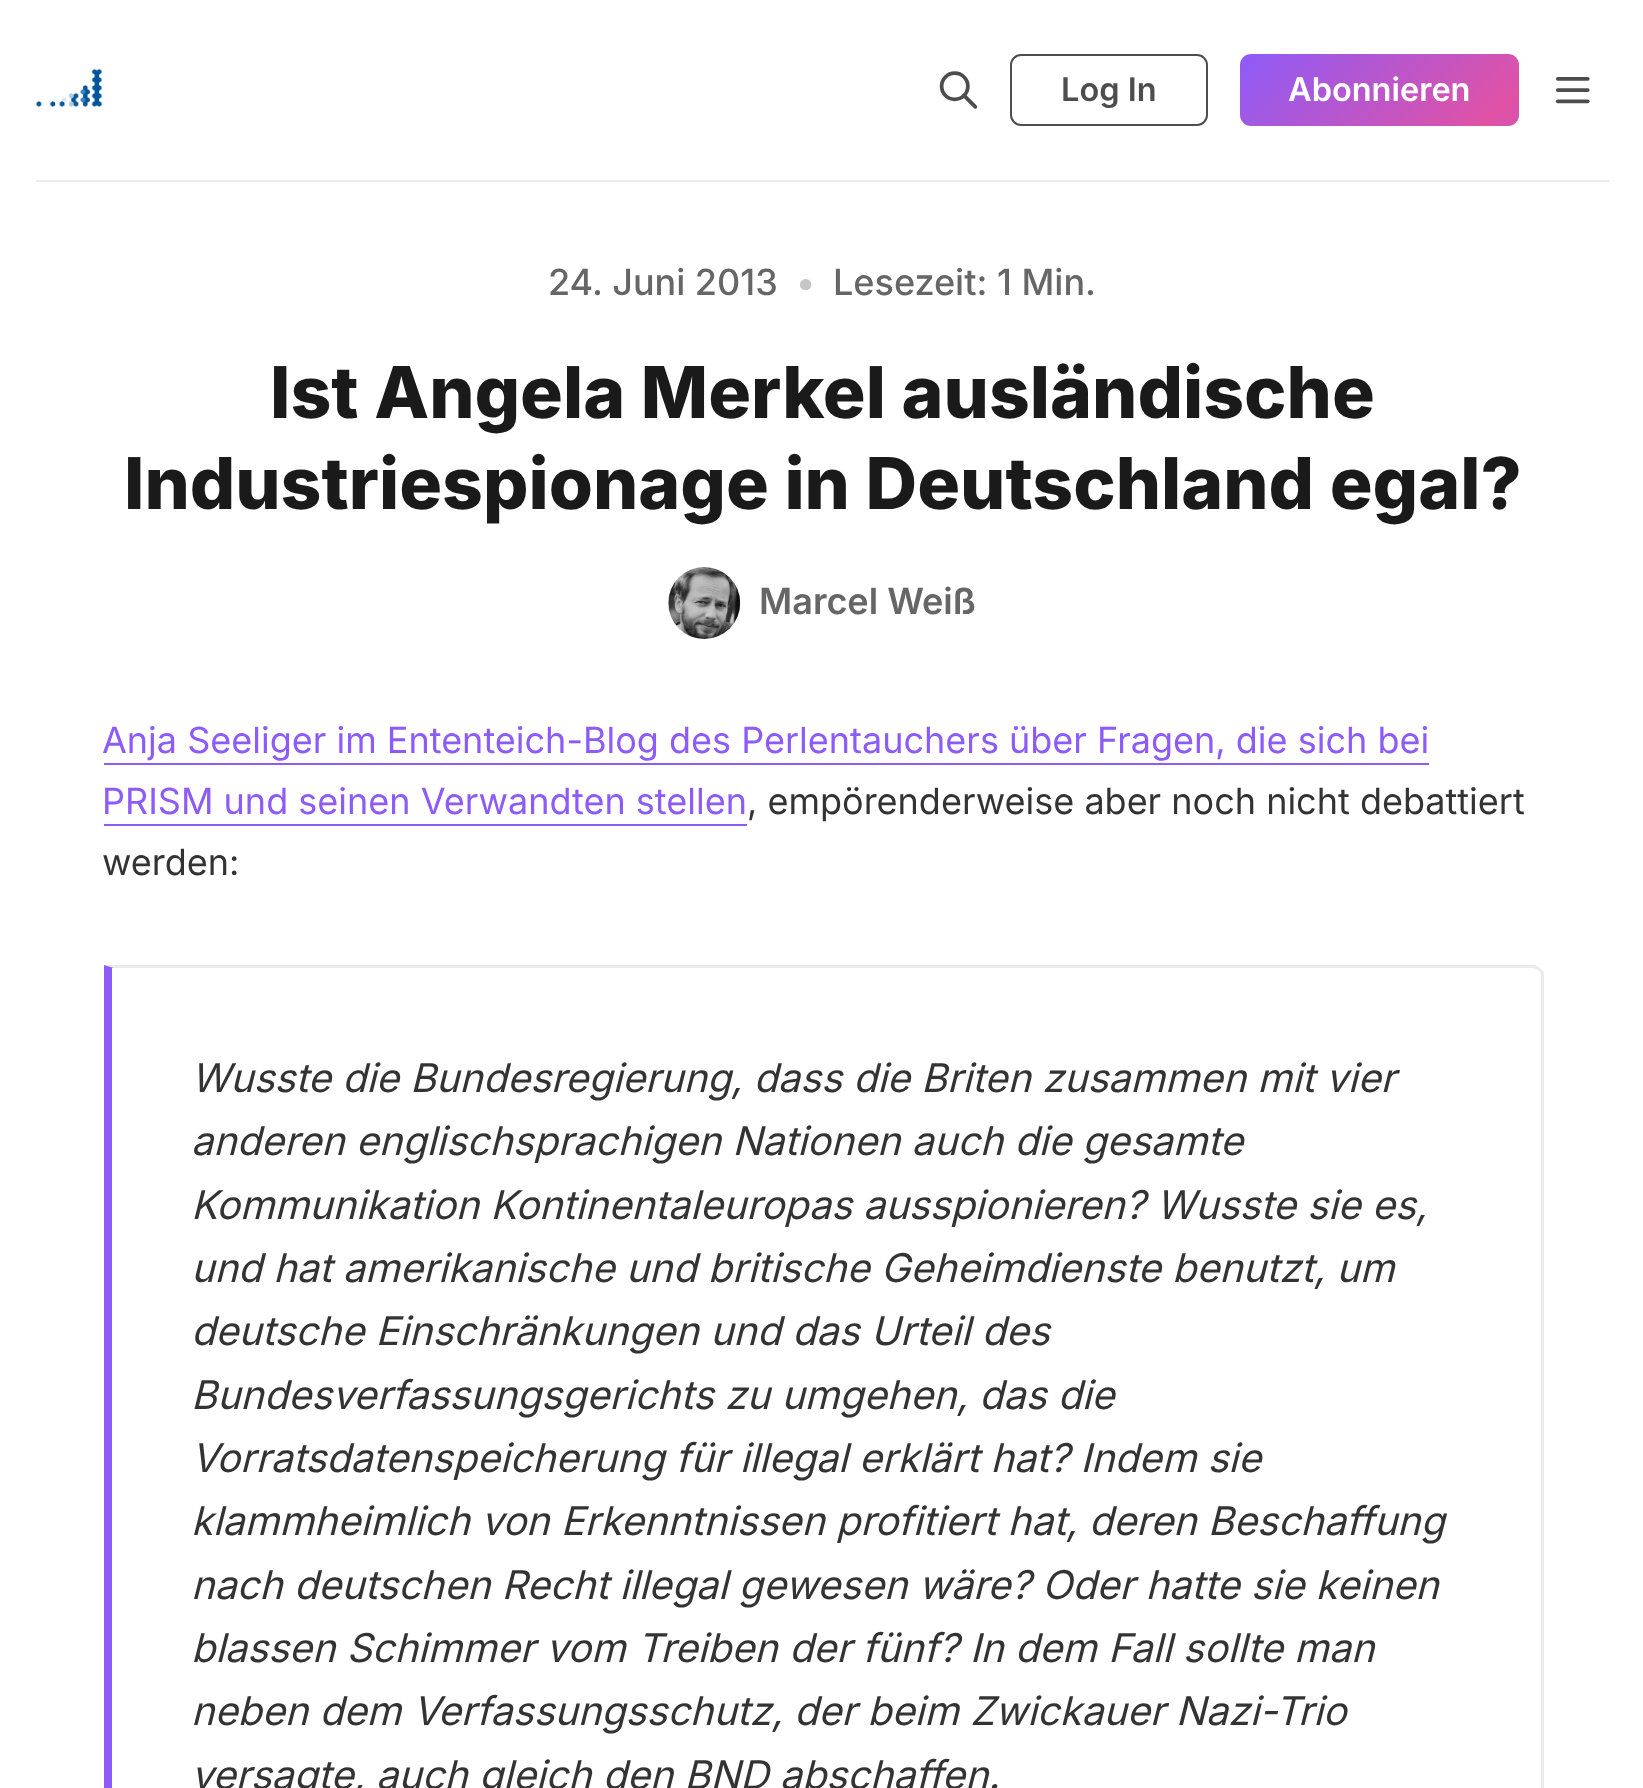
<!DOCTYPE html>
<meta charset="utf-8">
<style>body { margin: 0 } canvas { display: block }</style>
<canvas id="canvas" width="1643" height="1788"></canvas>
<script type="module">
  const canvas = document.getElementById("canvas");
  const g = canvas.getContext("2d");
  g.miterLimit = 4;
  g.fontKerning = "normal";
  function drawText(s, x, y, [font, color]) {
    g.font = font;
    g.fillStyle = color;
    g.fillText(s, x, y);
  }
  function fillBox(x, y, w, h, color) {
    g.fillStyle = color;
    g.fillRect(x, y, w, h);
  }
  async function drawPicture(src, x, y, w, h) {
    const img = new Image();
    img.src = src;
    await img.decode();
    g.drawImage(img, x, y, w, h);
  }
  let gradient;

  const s1 = ["600 32.5px Inter", "#4D4D4D"];
  const s2 = ["600 32.5px Inter", "#FFFFFF"];
  const s3 = ["500 36px Inter", "#666666"];
  const s4 = ["500 36px Inter", "#C6C6C6"];
  const s5 = ["800 71.4px Inter", "#1A1A1A"];
  const s6 = ["600 36px Inter", "#666666"];
  const s7 = ["36px Inter", "#8D5BF8"];
  const s8 = ["36px Inter", "#333333"];
  const s9 = ["italic 39.6px Inter", "#333333"];

  fillBox(0, 0, 1643, 1788, "#FFFFFF");
  await drawPicture("pic1.png", 36, 68, 66, 39);
  await drawPicture("pic2.png", 939, 71, 39, 38);
  g.beginPath();
  g.roundRect(1011, 55, 196, 70, 10);
  g.strokeStyle = "#4D4D4D";
  g.lineWidth = 2;
  g.stroke();
  drawText("Log In", 1061, 101, s1);
  gradient = g.createLinearGradient(1361, -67, 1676, 248);
  gradient.addColorStop(0, "#8D5BF8");
  gradient.addColorStop(0.5, "#E052A5");
  gradient.addColorStop(1, "#8D5BF8");
  g.fillStyle = gradient;
  g.beginPath();
  g.roundRect(1240, 54, 279, 72, 11);
  g.fill();
  drawText("Abonnieren", 1288, 101, s2);
  await drawPicture("pic3.png", 1555, 77, 35, 27);
  fillBox(36, 180, 1573, 2, "#EBEBEB");
  drawText("24. Juni 2013", 548, 295, s3);
  drawText("•", 796, 295, s4);
  drawText("Lesezeit: 1 Min.", 833, 295, s3);
  drawText("Ist Angela Merkel ausländische", 270, 418, s5);
  drawText("Industriespionage in Deutschland egal?", 124, 509, s5);
  await drawPicture("pic4.png", 668, 567, 73, 72);
  drawText("Marcel Weiß", 759, 614, s6);
  drawText("Anja Seeliger im Ententeich-Blog des Perlentauchers über Fragen, die sich bei", 102, 753, s7);
  fillBox(104, 763, 1325, 2, "#8D5BF8");
  drawText("PRISM und seinen Verwandten stellen", 102, 814, s7);
  fillBox(104, 824, 643, 2, "#8D5BF8");
  drawText(", empörenderweise aber noch nicht debattiert", 747, 814, s8);
  drawText("werden:", 102, 875, s8);
  g.fillStyle = "#EBEBEB";
  g.beginPath();
  g.moveTo(104, 965);
  g.lineTo(1534, 965);
  g.bezierCurveTo(1537, 966, 1539, 967, 1540, 968);
  g.lineTo(1538, 970);
  g.bezierCurveTo(1537, 969, 1534, 968, 1532, 968);
  g.lineTo(114, 968);
  g.closePath();
  g.fill();
  g.beginPath();
  g.moveTo(1544, 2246);
  g.bezierCurveTo(1543, 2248, 1542, 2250, 1540, 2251);
  g.lineTo(1538, 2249);
  g.bezierCurveTo(1540, 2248, 1541, 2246, 1541, 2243);
  g.lineTo(1541, 976);
  g.bezierCurveTo(1541, 974, 1540, 972, 1538, 970);
  g.lineTo(1540, 968);
  g.bezierCurveTo(1542, 970, 1543, 971, 1544, 973);
  g.closePath();
  g.fill();
  g.fillStyle = "#8D5BF8";
  g.beginPath();
  g.moveTo(112, 968);
  g.lineTo(112, 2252);
  g.lineTo(114, 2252);
  g.lineTo(104, 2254);
  g.lineTo(104, 965);
  g.lineTo(114, 968);
  g.closePath();
  g.fill();
  drawText("Wusste die Bundesregierung, dass die Briten zusammen mit vier", 191, 1092, s9);
  drawText("anderen englischsprachigen Nationen auch die gesamte", 191, 1155, s9);
  drawText("Kommunikation Kontinentaleuropas ausspionieren? Wusste sie es,", 191, 1219, s9);
  drawText("und hat amerikanische und britische Geheimdienste benutzt, um", 191, 1282, s9);
  drawText("deutsche Einschränkungen und das Urteil des", 191, 1345, s9);
  drawText("Bundesverfassungsgerichts zu umgehen, das die", 191, 1409, s9);
  drawText("Vorratsdatenspeicherung für illegal erklärt hat? Indem sie", 191, 1472, s9);
  drawText("klammheimlich von Erkenntnissen profitiert hat, deren Beschaffung", 191, 1535, s9);
  drawText("nach deutschen Recht illegal gewesen wäre? Oder hatte sie keinen", 191, 1599, s9);
  drawText("blassen Schimmer vom Treiben der fünf? In dem Fall sollte man", 191, 1662, s9);
  drawText("neben dem Verfassungsschutz, der beim Zwickauer Nazi-Trio", 191, 1725, s9);
  drawText("versagte, auch gleich den BND abschaffen.", 191, 1789, s9);
</script>
